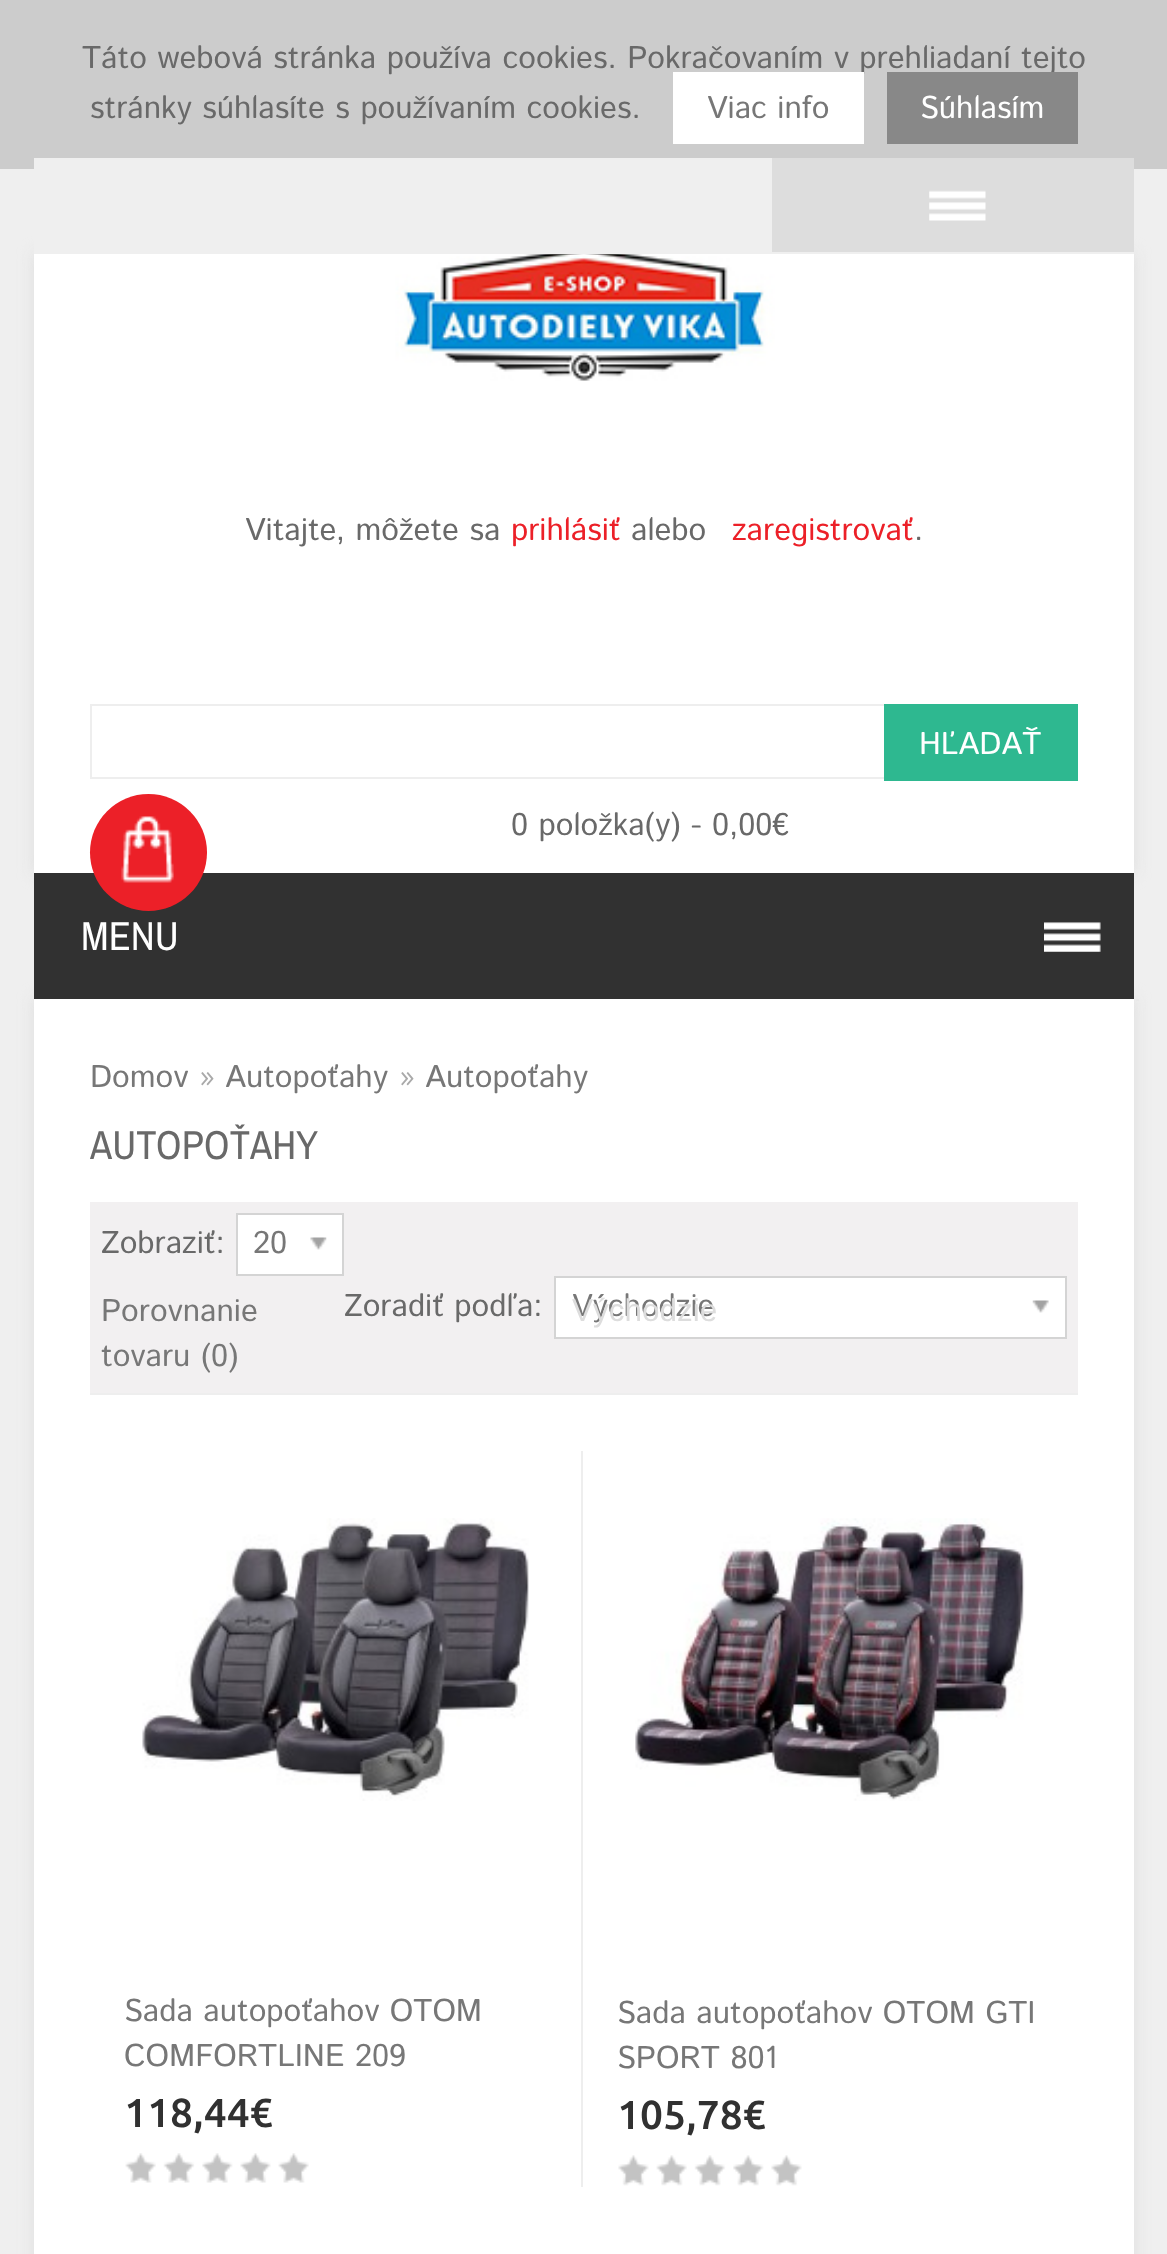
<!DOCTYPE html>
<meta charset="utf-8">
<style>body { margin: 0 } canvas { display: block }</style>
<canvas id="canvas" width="1167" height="2254"></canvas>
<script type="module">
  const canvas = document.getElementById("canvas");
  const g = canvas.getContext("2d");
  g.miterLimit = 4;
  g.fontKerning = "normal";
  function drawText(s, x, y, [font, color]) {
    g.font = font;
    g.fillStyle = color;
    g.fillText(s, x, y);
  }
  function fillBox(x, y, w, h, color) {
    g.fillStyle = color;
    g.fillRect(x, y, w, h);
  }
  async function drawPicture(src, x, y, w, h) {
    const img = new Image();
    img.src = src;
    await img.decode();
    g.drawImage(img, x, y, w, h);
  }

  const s1 = ["31.5px Istok Web", "#696969"];
  const s2 = ["31.5px Istok Web", "#777777"];
  const s3 = ["31.5px Istok Web", "#FFFFFF"];
  const s4 = ["31.5px Istok Web", "#EC2028"];
  const s5 = ["40.5px Archivo Narrow", "#FFFFFF"];
  const s6 = ["31.5px Istok Web", "#AAAAAA"];
  const s7 = ["40.5px Archivo Narrow", "#696969"];
  const s8 = ["31.5px Liberation Sans", "#DDDDDD"];
  const s9 = ["500 40.5px Ubuntu", "#313131"];

  fillBox(0, 0, 1167, 2254, "#EFEFEF");
  fillBox(0, 0, 1167, 169, "#CCCCCC");
  drawText("Táto webová stránka používa cookies. Pokračovaním v prehliadaní tejto", 82, 68, s1);
  drawText("stránky súhlasíte s používaním cookies.", 90, 118, s1);
  fillBox(673, 72, 191, 72, "#FFFFFF");
  drawText("Viac info", 707, 118, s2);
  fillBox(887, 72, 191, 72, "#888888");
  drawText("Súhlasím", 920, 118, s3);
  g.fillStyle = "#DDDDDD";
  g.filter = "blur(8px)";
  g.beginPath();
  g.rect(34, 254, 1100, 619);
  g.fill();
  g.filter = "none";
  fillBox(34, 158, 1100, 96, "#EFEFEF");
  fillBox(772, 158, 362, 94, "#DDDDDD");
  await drawPicture("pic1.png", 929, 190, 57, 31);
  fillBox(34, 254, 1100, 619, "#FFFFFF");
  drawText("Vitajte, môžete sa", 245, 540, s1);
  drawText("prihlásiť", 511, 540, s4);
  drawText("alebo", 631, 540, s1);
  drawText("zaregistrovať", 732, 540, s4);
  drawText(".", 914, 540, s1);
  await drawPicture("pic2.png", 360, 254, 450, 127);
  g.strokeStyle = "#EEEEEE";
  g.lineWidth = 2;
  g.strokeRect(91, 705, 986, 73);
  fillBox(884, 704, 194, 77, "#2EB890");
  drawText("HĽADAŤ", 919, 754, s3);
  g.fillStyle = "#DDDDDD";
  g.filter = "blur(8px)";
  g.beginPath();
  g.rect(34, 999, 1100, 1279);
  g.fill();
  g.filter = "none";
  fillBox(34, 873, 1100, 126, "#313131");
  g.fillStyle = "#EC2028";
  g.beginPath();
  g.arc(148.5, 852.5, 58.5, 0, Math.PI * 2);
  g.fill();
  await drawPicture("pic3.png", 121, 816, 53, 67);
  drawText("0 položka(y) - 0,00€", 511, 835, s1);
  drawText("MENU", 81, 950, s5);
  await drawPicture("pic4.png", 1044, 922, 57, 30);
  fillBox(1136, 999, 3, 2, "#E8E8E8");
  fillBox(34, 999, 1100, 1255, "#FFFFFF");
  drawText("Domov", 90, 1087, s2);
  drawText("»", 199, 1087, s6);
  drawText("Autopoťahy", 225, 1087, s2);
  drawText("»", 399, 1087, s6);
  drawText("Autopoťahy", 425, 1087, s2);
  drawText("AUTOPOŤAHY", 90, 1159, s7);
  fillBox(90, 1202, 988, 191, "#F2F0F1");
  fillBox(90, 1393, 988, 2, "#EEEEEE");
  drawText("Zobraziť:", 101, 1253, s1);
  g.fillStyle = "#FFFFFF";
  g.beginPath();
  g.rect(237, 1214, 106, 61);
  g.fill();
  g.strokeStyle = "#D4D4D4";
  g.stroke();
  await drawPicture("pic5.png", 310, 1237, 17, 13);
  drawText("20", 253, 1253, s2);
  drawText("Porovnanie", 101, 1321, s2);
  drawText("tovaru (0)", 101, 1366, s2);
  drawText("Zoradiť podľa:", 344, 1316, s1);
  g.fillStyle = "#FFFFFF";
  g.beginPath();
  g.rect(555, 1277, 511, 61);
  g.fill();
  g.stroke();
  await drawPicture("pic6.png", 1032, 1300, 17, 13);
  drawText("Východzie", 572, 1316, s2);
  drawText("Východzie", 572, 1321, s8);
  fillBox(581, 1451, 2, 736, "#EEEEEE");
  await drawPicture("pic7.png", 142, 1518, 387, 283);
  drawText("Sada autopoťahov OTOM", 124, 2021, s2);
  drawText("COMFORTLINE 209", 124, 2066, s2);
  drawText("118,44€", 124, 2127, s9);
  await drawPicture("pic8.png", 125, 2153, 184, 30);
  await drawPicture("pic9.png", 635, 1518, 390, 283);
  drawText("Sada autopoťahov OTOM GTI", 617, 2023, s2);
  drawText("SPORT 801", 617, 2068, s2);
  drawText("105,78€", 617, 2129, s9);
  await drawPicture("pic10.png", 618, 2155, 184, 31);
</script>
